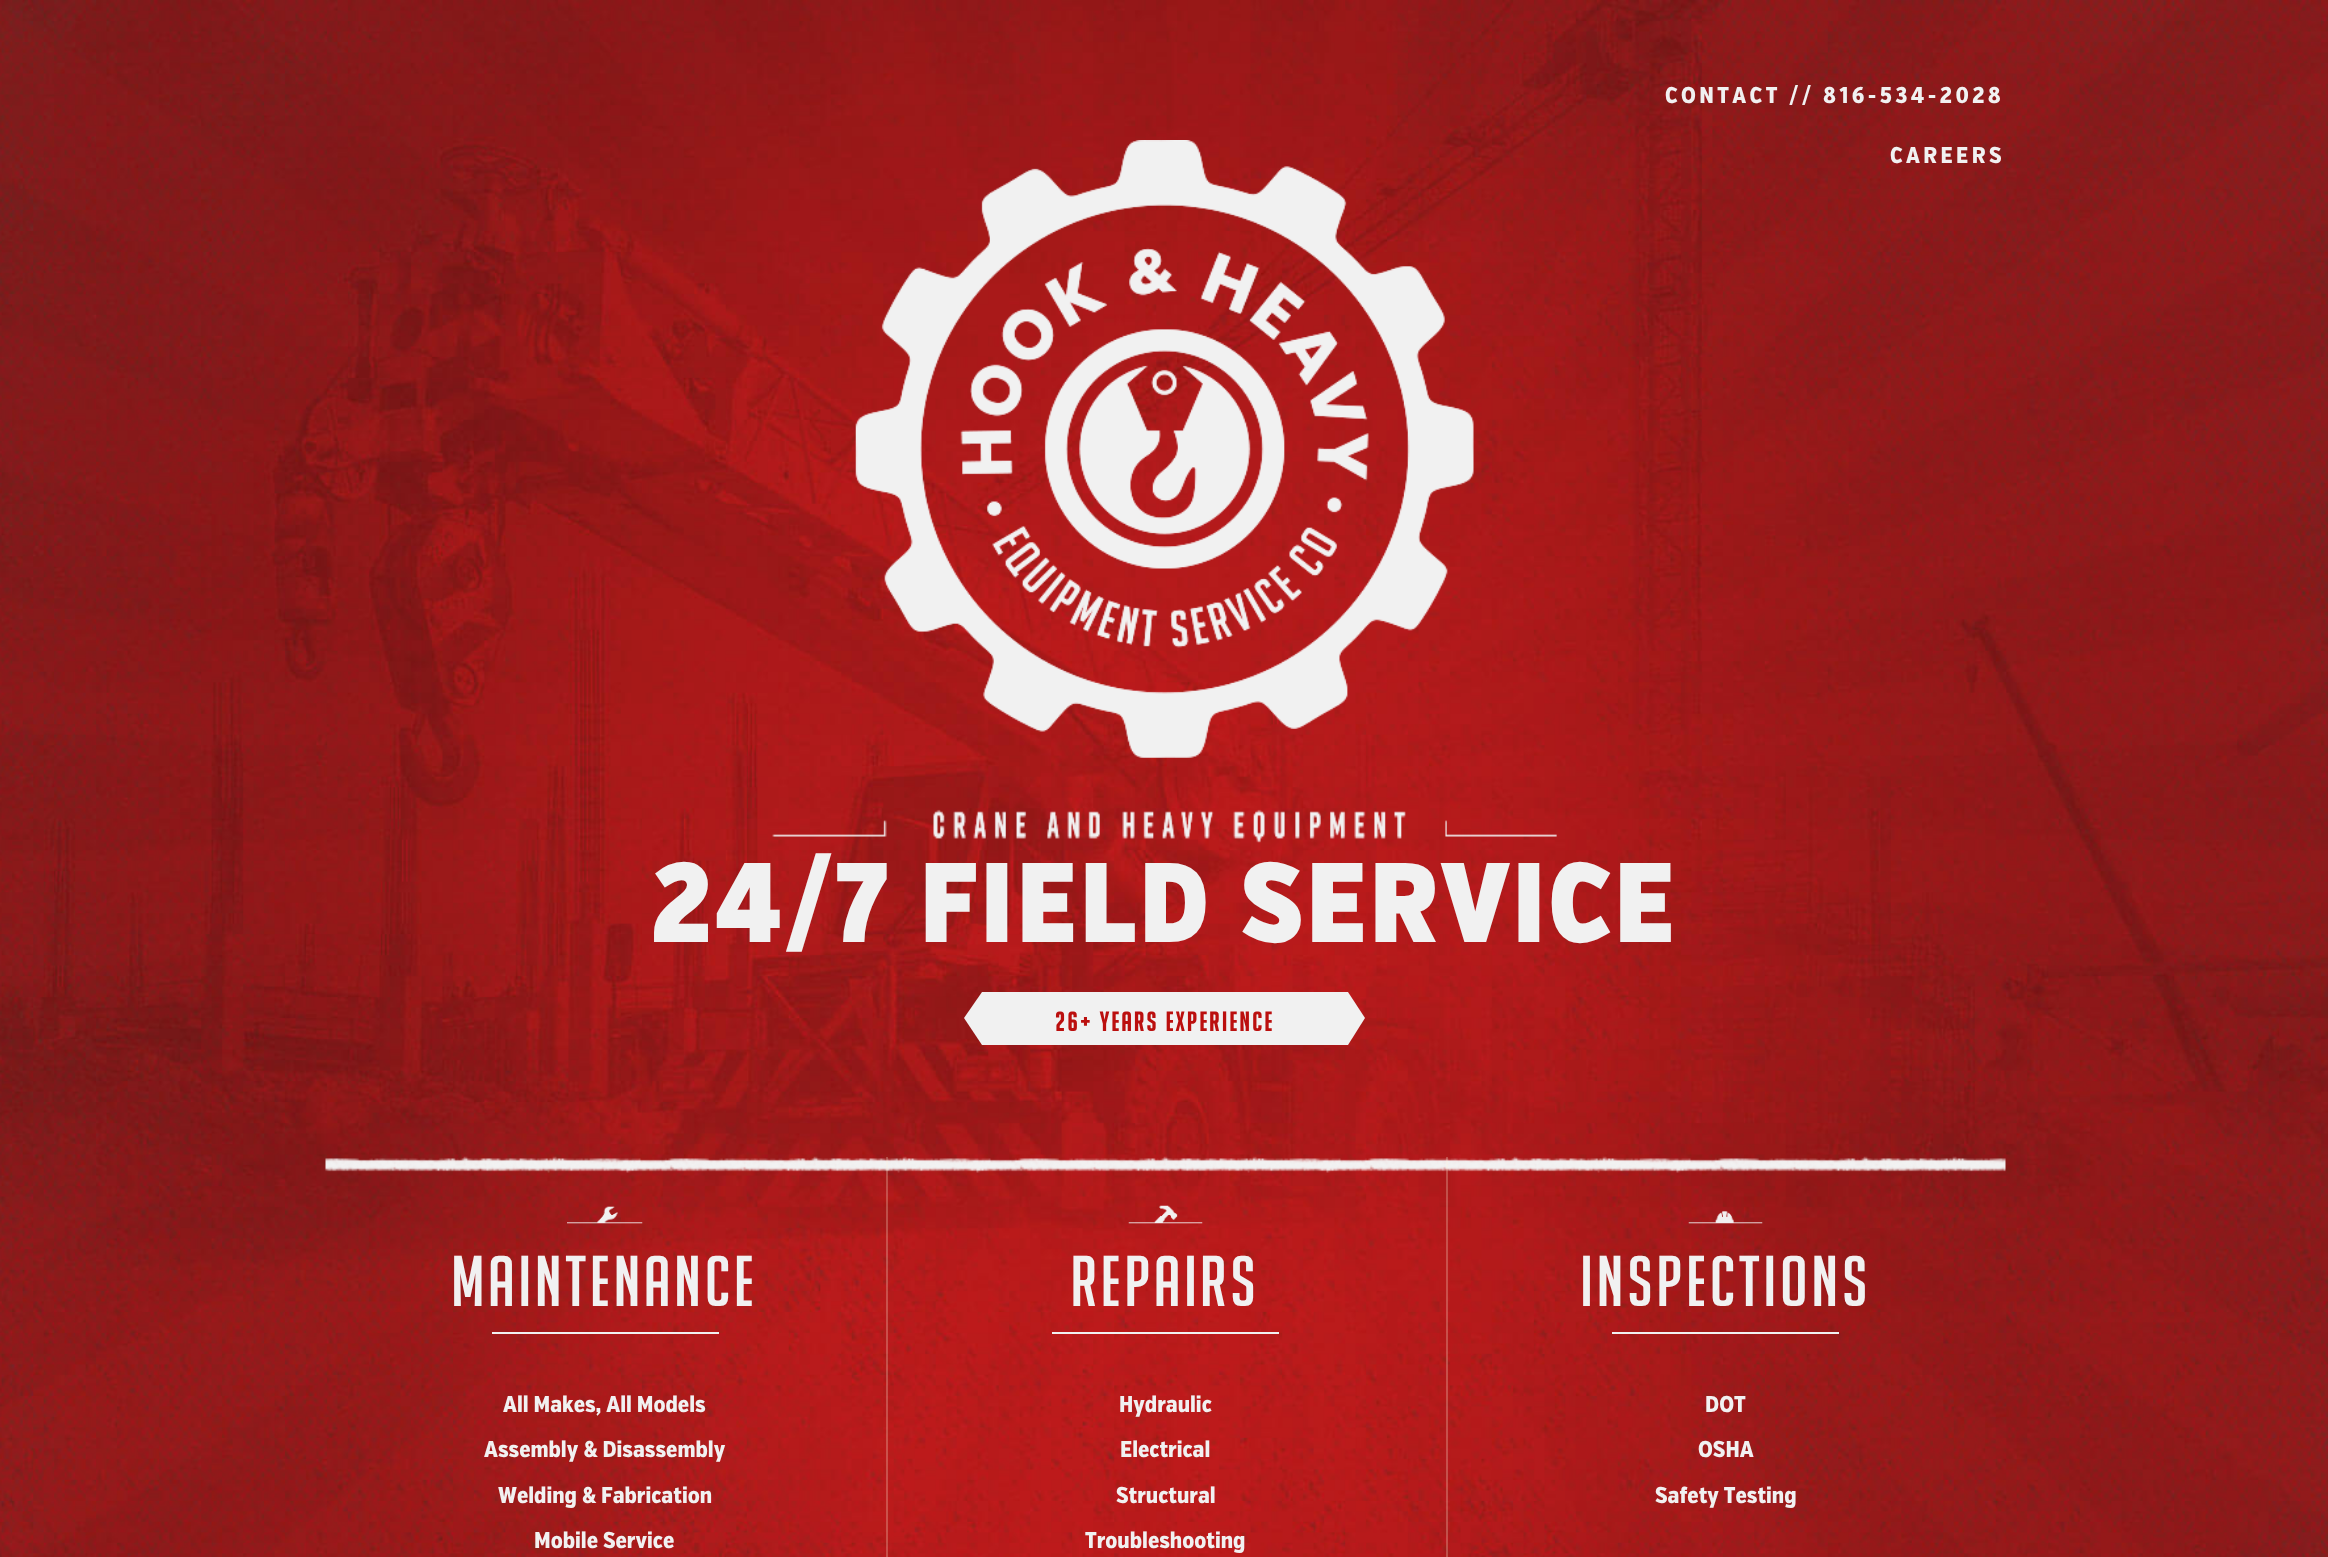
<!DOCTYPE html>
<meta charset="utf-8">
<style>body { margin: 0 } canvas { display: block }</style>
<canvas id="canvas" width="2328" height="1557"></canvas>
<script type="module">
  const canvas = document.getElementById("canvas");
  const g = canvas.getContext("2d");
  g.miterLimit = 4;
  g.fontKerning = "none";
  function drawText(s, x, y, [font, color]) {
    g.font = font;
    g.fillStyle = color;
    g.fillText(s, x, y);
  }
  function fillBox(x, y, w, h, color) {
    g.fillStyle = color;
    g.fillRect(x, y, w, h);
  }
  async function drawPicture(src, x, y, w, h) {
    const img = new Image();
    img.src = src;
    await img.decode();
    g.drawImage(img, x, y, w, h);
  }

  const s1 = ["22.75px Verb", "#F1F1F1"];
  const s2 = ["bold 108.5px Verb", "#F1F1F1"];
  const s3 = ["bold 26.25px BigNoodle", "#BB0F0E"];
  const s4 = ["70px BigNoodle", "#F1F1F1"];

  fillBox(0, 0, 2328, 1557, "#FFFFFF");
  await drawPicture("pic1.png", 0, 0, 2328, 1557);
  g.letterSpacing = "3.4px";
  drawText("CONTACT //", 1665, 103, s1);
  drawText("816-534-2028", 1823, 103, s1);
  await drawPicture("pic2.png", 855, 140, 619, 618);
  drawText("CAREERS", 1890, 163, s1);
  await drawPicture("pic3.png", 772, 809, 785, 34);
  g.letterSpacing = "5.4px";
  drawText("24/7 FIELD SERVICE", 651, 942, s2);
  fillBox(982, 992, 366, 53, "#F1F1F1");
  g.beginPath();
  g.moveTo(982, 992);
  g.lineTo(982, 1045);
  g.lineTo(964, 1018);
  g.closePath();
  g.fill();
  g.letterSpacing = "2.6px";
  drawText("26+ Years Experience", 1055, 1031, s3);
  g.fillStyle = "#F1F1F1";
  g.beginPath();
  g.moveTo(1348, 1045);
  g.lineTo(1348, 992);
  g.lineTo(1365, 1018);
  g.closePath();
  g.fill();
  await drawPicture("pic4.png", 325, 1156, 1681, 17);
  await drawPicture("pic5.png", 567, 1206, 76, 18);
  g.letterSpacing = "3.5px";
  drawText("Maintenance", 451, 1306, s4);
  fillBox(492, 1332, 227, 2, "#F1F1F1");
  g.letterSpacing = "0px";
  drawText("All Makes, All Models", 503, 1412, s1);
  drawText("Assembly & Disassembly", 484, 1457, s1);
  drawText("Welding & Fabrication", 498, 1503, s1);
  drawText("Mobile Service", 534, 1548, s1);
  fillBox(886, 1157, 2, 400, "rgba(255, 245, 221, 0.25)");
  await drawPicture("pic6.png", 1128, 1205, 75, 19);
  g.letterSpacing = "3.5px";
  drawText("Repairs", 1071, 1306, s4);
  fillBox(1052, 1332, 227, 2, "#F1F1F1");
  g.letterSpacing = "0px";
  drawText("Hydraulic", 1119, 1412, s1);
  drawText("Electrical", 1120, 1457, s1);
  drawText("Structural", 1116, 1503, s1);
  drawText("Troubleshooting", 1085, 1548, s1);
  fillBox(1446, 1157, 2, 400, "rgba(255, 245, 221, 0.25)");
  await drawPicture("pic7.png", 1688, 1211, 75, 13);
  g.letterSpacing = "3.5px";
  drawText("Inspections", 1580, 1306, s4);
  fillBox(1612, 1332, 227, 2, "#F1F1F1");
  g.letterSpacing = "0px";
  drawText("DOT", 1705, 1412, s1);
  drawText("OSHA", 1698, 1457, s1);
  drawText("Safety Testing", 1655, 1503, s1);
</script>
